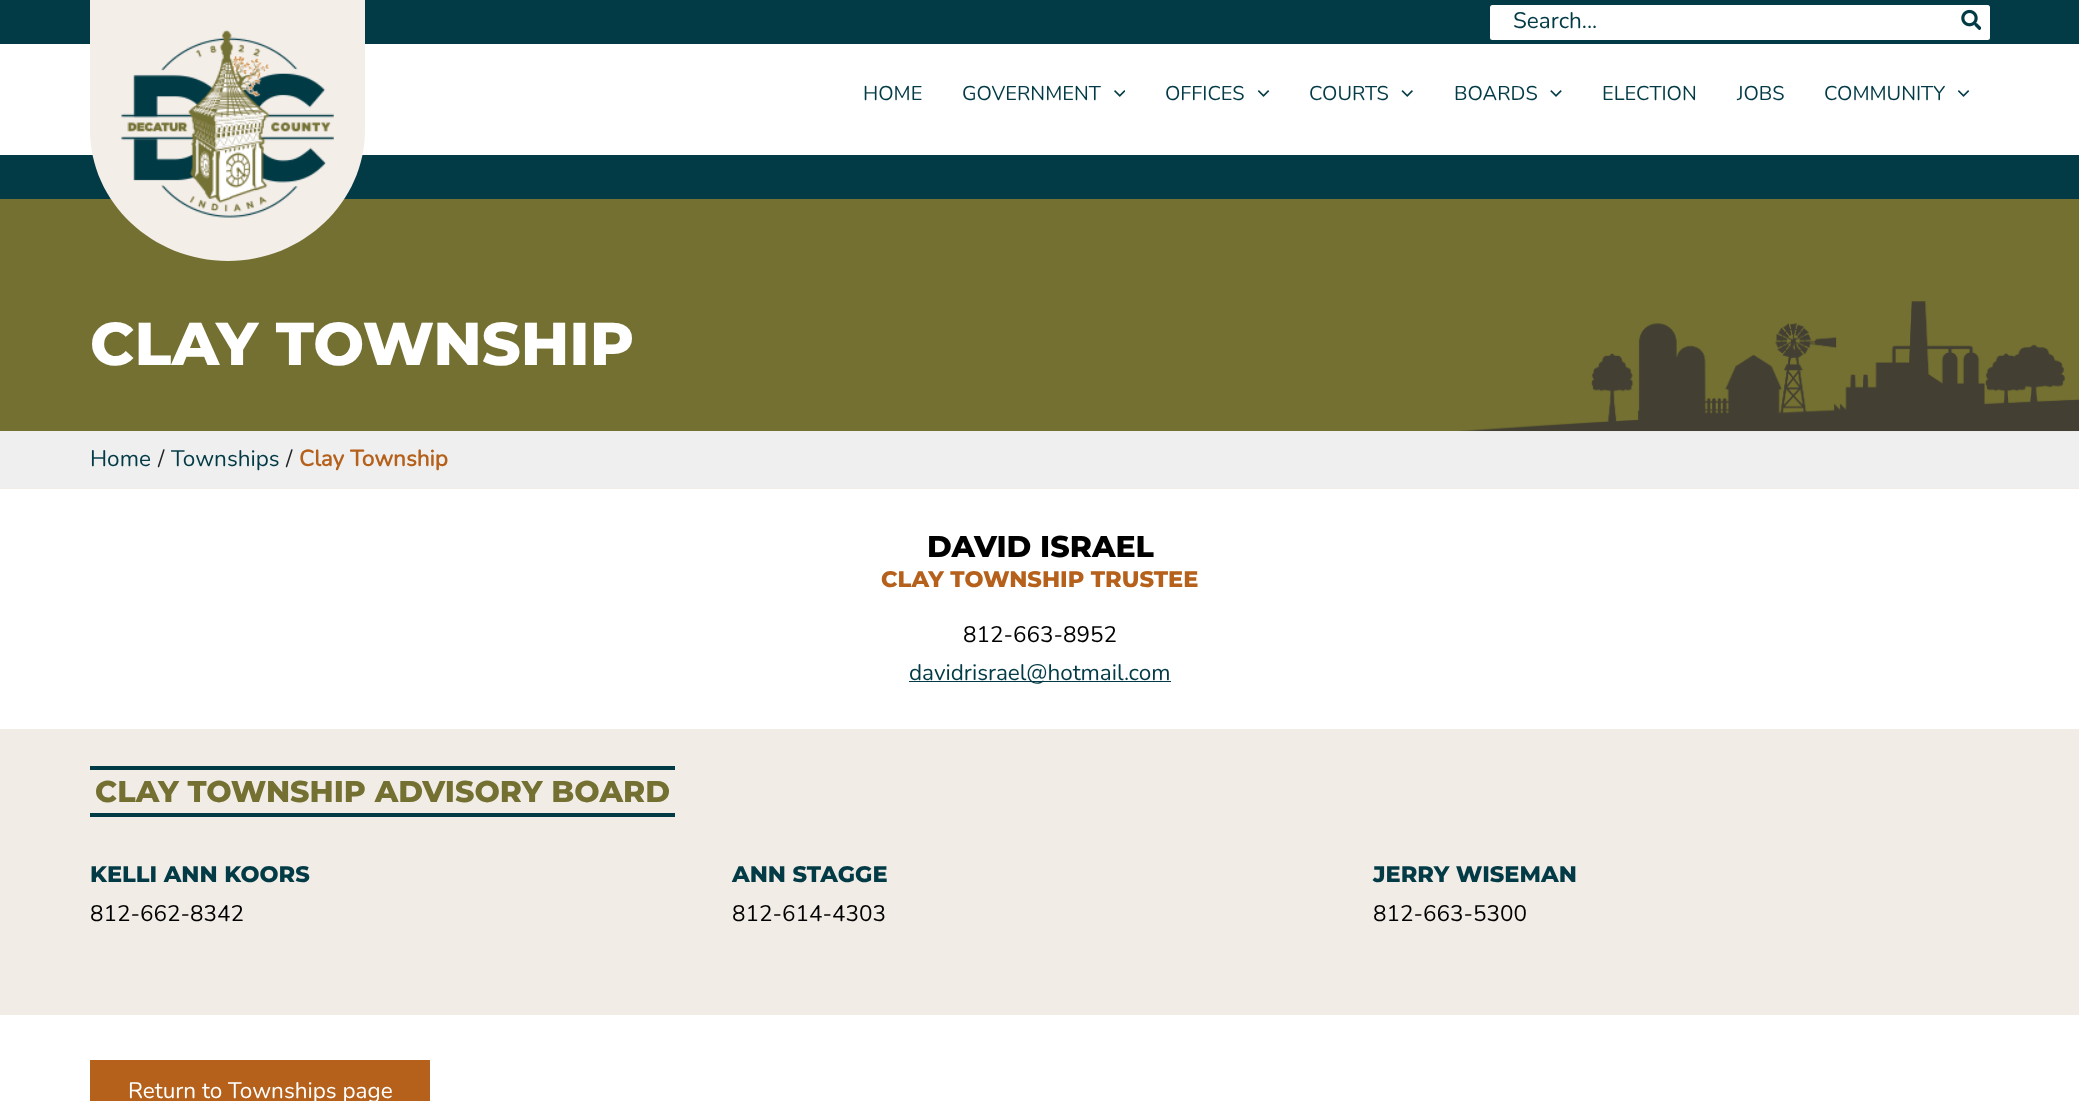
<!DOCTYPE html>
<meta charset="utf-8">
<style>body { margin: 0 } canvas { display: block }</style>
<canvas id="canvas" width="2079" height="1101"></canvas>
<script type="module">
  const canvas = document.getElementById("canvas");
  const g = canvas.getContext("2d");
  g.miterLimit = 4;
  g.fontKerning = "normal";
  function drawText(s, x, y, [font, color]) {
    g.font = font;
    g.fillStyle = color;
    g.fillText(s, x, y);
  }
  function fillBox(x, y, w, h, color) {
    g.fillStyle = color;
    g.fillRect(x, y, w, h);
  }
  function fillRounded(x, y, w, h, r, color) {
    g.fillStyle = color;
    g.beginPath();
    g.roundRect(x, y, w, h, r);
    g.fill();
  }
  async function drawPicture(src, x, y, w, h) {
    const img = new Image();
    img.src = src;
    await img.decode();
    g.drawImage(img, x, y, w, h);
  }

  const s1 = ["200 22.5px Nunito", "#023A45"];
  const s2 = ["200 20px Nunito", "#023A45"];
  const s3 = ["100 60.25px Montserrat", "#FFFFFF"];
  const s4 = ["200 22.5px Nunito", "#242627"];
  const s5 = ["bold 22.5px Nunito", "#B5601B"];
  const s6 = ["100 30px Montserrat", "#000000"];
  const s7 = ["100 22.5px Montserrat", "#B5601B"];
  const s8 = ["200 22.5px Nunito", "#000000"];
  const s9 = ["100 30px Montserrat", "#747031"];
  const s10 = ["100 22.5px Montserrat", "#023A45"];
  const s11 = ["200 22.5px Nunito", "#FFFFFF"];

  fillBox(0, 0, 2079, 1101, "#FFFFFF");
  fillBox(0, 155, 2079, 44, "#023A45");
  fillBox(0, 0, 2079, 44, "#023A45");
  fillBox(0, 199, 2079, 232, "#747031");
  g.fillStyle = "#F4EEE9";
  g.beginPath();
  g.moveTo(90, -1);
  g.lineTo(365, -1);
  g.lineTo(365, 130);
  g.bezierCurveTo(365, 202, 303, 261, 228, 261);
  g.bezierCurveTo(152, 261, 90, 202, 90, 130);
  g.closePath();
  g.fill();
  await drawPicture("pic1.png", 121, 30, 213, 188);
  fillRounded(1490, 5, 500, 35, 2.5, "#FFFFFF");
  drawText("Search...", 1513, 28, s1);
  await drawPicture("pic2.png", 1961, 9, 20, 22);
  drawText("HOME", 863, 100, s2);
  drawText("GOVERNMENT", 962, 100, s2);
  await drawPicture("pic3.png", 1114, 90, 11, 7);
  drawText("OFFICES", 1165, 100, s2);
  await drawPicture("pic4.png", 1258, 90, 12, 7);
  drawText("COURTS", 1309, 100, s2);
  await drawPicture("pic5.png", 1401, 90, 12, 7);
  drawText("BOARDS", 1454, 100, s2);
  await drawPicture("pic6.png", 1550, 90, 12, 7);
  drawText("ELECTION", 1602, 100, s2);
  drawText("JOBS", 1737, 100, s2);
  drawText("COMMUNITY", 1824, 100, s2);
  await drawPicture("pic4.png", 1958, 90, 12, 7);
  await drawPicture("pic7.png", 1459, 301, 620, 131);
  drawText("CLAY TOWNSHIP", 90, 365, s3);
  fillBox(0, 431, 2079, 57, "rgba(238, 238, 238, 0.93)");
  fillBox(0, 488, 2079, 1, "#F2ECE7");
  drawText("Home", 90, 466, s1);
  drawText("/", 158, 466, s4);
  drawText("Townships", 171, 466, s1);
  drawText("/", 286, 466, s4);
  drawText("Clay Township", 299, 466, s5);
  drawText("DAVID ISRAEL", 927, 557, s6);
  drawText("CLAY TOWNSHIP TRUSTEE", 881, 587, s7);
  drawText("812-663-8952", 963, 642, s8);
  fillBox(909, 681, 262, 1, "#023A45");
  drawText("davidrisrael@hotmail.com", 909, 680, s1);
  fillBox(0, 729, 2079, 286, "#F2ECE7");
  fillBox(90, 766, 585, 4, "#023A45");
  fillBox(90, 813, 585, 4, "#023A45");
  drawText("CLAY TOWNSHIP ADVISORY BOARD", 95, 802, s9);
  drawText("KELLI ANN KOORS", 90, 882, s10);
  drawText("812-662-8342", 90, 921, s8);
  drawText("ANN STAGGE", 732, 882, s10);
  drawText("812-614-4303", 732, 921, s8);
  drawText("JERRY WISEMAN", 1373, 882, s10);
  drawText("812-663-5300", 1373, 921, s8);
  fillBox(90, 1060, 340, 41, "#B5601B");
  drawText("Return to Townships page", 128, 1098, s11);
</script>
